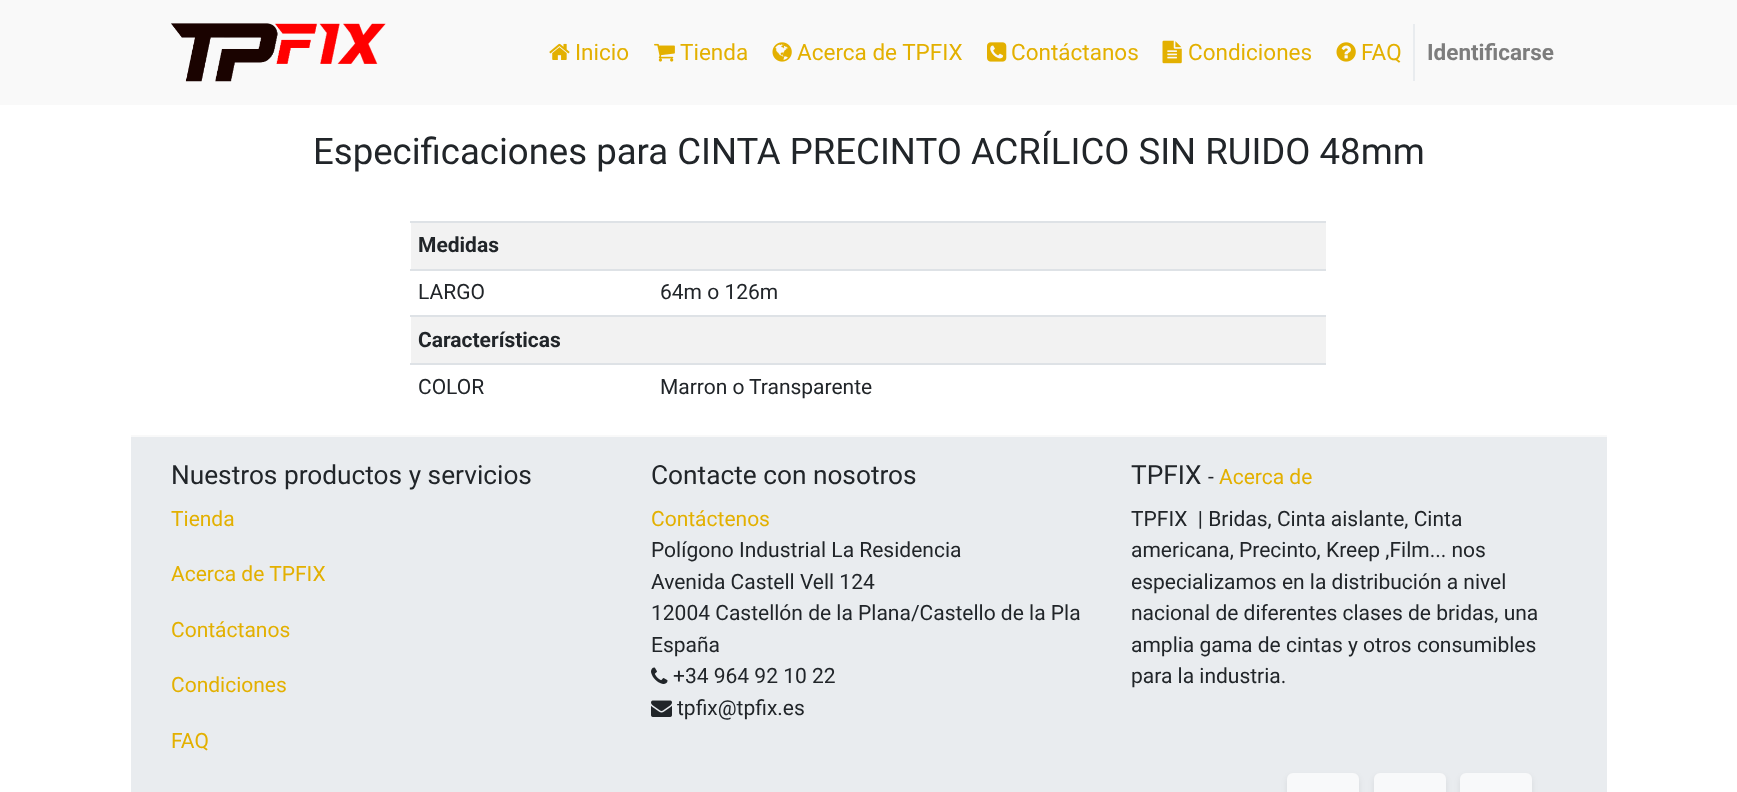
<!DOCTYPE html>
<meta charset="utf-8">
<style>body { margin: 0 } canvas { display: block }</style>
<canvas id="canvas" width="1737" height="792"></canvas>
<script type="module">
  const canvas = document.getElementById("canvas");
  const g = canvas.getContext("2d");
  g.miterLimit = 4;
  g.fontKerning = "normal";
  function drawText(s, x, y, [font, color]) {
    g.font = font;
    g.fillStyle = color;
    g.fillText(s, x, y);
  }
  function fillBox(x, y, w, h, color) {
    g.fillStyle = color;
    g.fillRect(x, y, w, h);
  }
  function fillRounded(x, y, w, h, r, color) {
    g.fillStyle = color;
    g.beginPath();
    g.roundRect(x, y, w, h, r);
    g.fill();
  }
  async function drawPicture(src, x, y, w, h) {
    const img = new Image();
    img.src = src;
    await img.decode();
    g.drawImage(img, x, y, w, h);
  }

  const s1 = ["22.5px Roboto", "#E3B000"];
  const s2 = ["bold 22.5px Roboto", "#7D7D7D"];
  const s3 = ["36.55px Roboto", "#212529"];
  const s4 = ["bold 21px Roboto", "#212529"];
  const s5 = ["21px Roboto", "#212529"];
  const s6 = ["26.25px Roboto", "#212529"];
  const s7 = ["21px Roboto", "#E3B000"];

  fillBox(0, 0, 1737, 792, "#FFFFFF");
  fillBox(0, 0, 1737, 105, "#F9F9F9");
  await drawPicture("pic1.png", 171, 23, 215, 59);
  await drawPicture("pic2.png", 549, 43, 21, 17);
  drawText("Inicio", 575, 60, s1);
  await drawPicture("pic3.png", 654, 43, 21, 19);
  drawText("Tienda", 680, 60, s1);
  await drawPicture("pic4.png", 772, 42, 20, 20);
  drawText("Acerca de TPFIX", 797, 60, s1);
  await drawPicture("pic5.png", 987, 42, 20, 20);
  drawText("Contáctanos", 1011, 60, s1);
  await drawPicture("pic6.png", 1162, 40, 20, 24);
  drawText("Condiciones", 1188, 60, s1);
  await drawPicture("pic7.png", 1336, 42, 20, 20);
  drawText("FAQ", 1361, 60, s1);
  fillBox(1413, 24, 2, 57, "#E9ECEF");
  drawText("Identificarse", 1427, 60, s2);
  drawText("Especificaciones para CINTA PRECINTO ACRÍLICO SIN RUIDO 48mm", 313, 164, s3);
  fillBox(411, 223, 915, 46, "#F2F2F2");
  fillBox(410, 221, 916, 2, "#DEE2E6");
  drawText("Medidas", 418, 252, s4);
  drawText("LARGO", 418, 299, s5);
  fillBox(410, 269, 916, 2, "#DEE2E6");
  drawText("64m o 126m", 660, 299, s5);
  fillBox(411, 317, 915, 46, "#F2F2F2");
  fillBox(410, 315, 916, 2, "#DEE2E6");
  drawText("Características", 418, 347, s4);
  drawText("COLOR", 418, 394, s5);
  fillBox(410, 363, 916, 2, "#DEE2E6");
  drawText("Marron o", 660, 394, s5);
  drawText("Transparente", 749, 394, s5);
  fillBox(131, 435, 1476, 2, "#F9F9F9");
  fillBox(131, 437, 1476, 355, "#E9ECEF");
  drawText("Nuestros productos y servicios", 171, 484, s6);
  drawText("Tienda", 171, 526, s7);
  drawText("Acerca de TPFIX", 171, 581, s7);
  drawText("Contáctanos", 171, 637, s7);
  drawText("Condiciones", 171, 692, s7);
  drawText("FAQ", 171, 748, s7);
  drawText("Contacte con nosotros", 651, 484, s6);
  drawText("Contáctenos", 651, 526, s7);
  drawText("Polígono Industrial La Residencia", 651, 557, s5);
  drawText("Avenida Castell Vell 124", 651, 589, s5);
  drawText("12004 Castellón de la Plana/Castello de la Pla", 651, 620, s5);
  drawText("España", 651, 652, s5);
  await drawPicture("pic8.png", 651, 667, 17, 17);
  drawText("+34 964 92 10 22", 673, 683, s5);
  await drawPicture("pic9.png", 651, 700, 21, 17);
  drawText("tpfix@tpfix.es", 677, 715, s5);
  drawText("TPFIX", 1131, 484, s6);
  drawText("-", 1208, 484, s5);
  drawText("Acerca de", 1219, 484, s7);
  drawText("TPFIX  | Bridas, Cinta aislante, Cinta", 1131, 526, s5);
  drawText("americana, Precinto, Kreep ,Film... nos", 1131, 557, s5);
  drawText("especializamos en la distribución a nivel", 1131, 589, s5);
  drawText("nacional de diferentes clases de bridas, una", 1131, 620, s5);
  drawText("amplia gama de cintas y otros consumibles", 1131, 652, s5);
  drawText("para la industria.", 1131, 683, s5);
  g.fillStyle = "rgba(0, 0, 0, 0.07)";
  g.filter = "blur(3px)";
  g.beginPath();
  g.roundRect(1287, 776, 72, 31, 6);
  g.fill();
  g.filter = "none";
  fillRounded(1287, 773, 72, 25, 6, "#F8F9FA");
  g.fillStyle = "rgba(0, 0, 0, 0.07)";
  g.filter = "blur(3px)";
  g.beginPath();
  g.roundRect(1374, 776, 72, 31, 6);
  g.fill();
  g.filter = "none";
  fillRounded(1374, 773, 72, 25, 6, "#F8F9FA");
  g.fillStyle = "rgba(0, 0, 0, 0.07)";
  g.filter = "blur(3px)";
  g.beginPath();
  g.roundRect(1460, 776, 72, 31, 6);
  g.fill();
  g.filter = "none";
  fillRounded(1460, 773, 72, 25, 6, "#F8F9FA");
</script>
